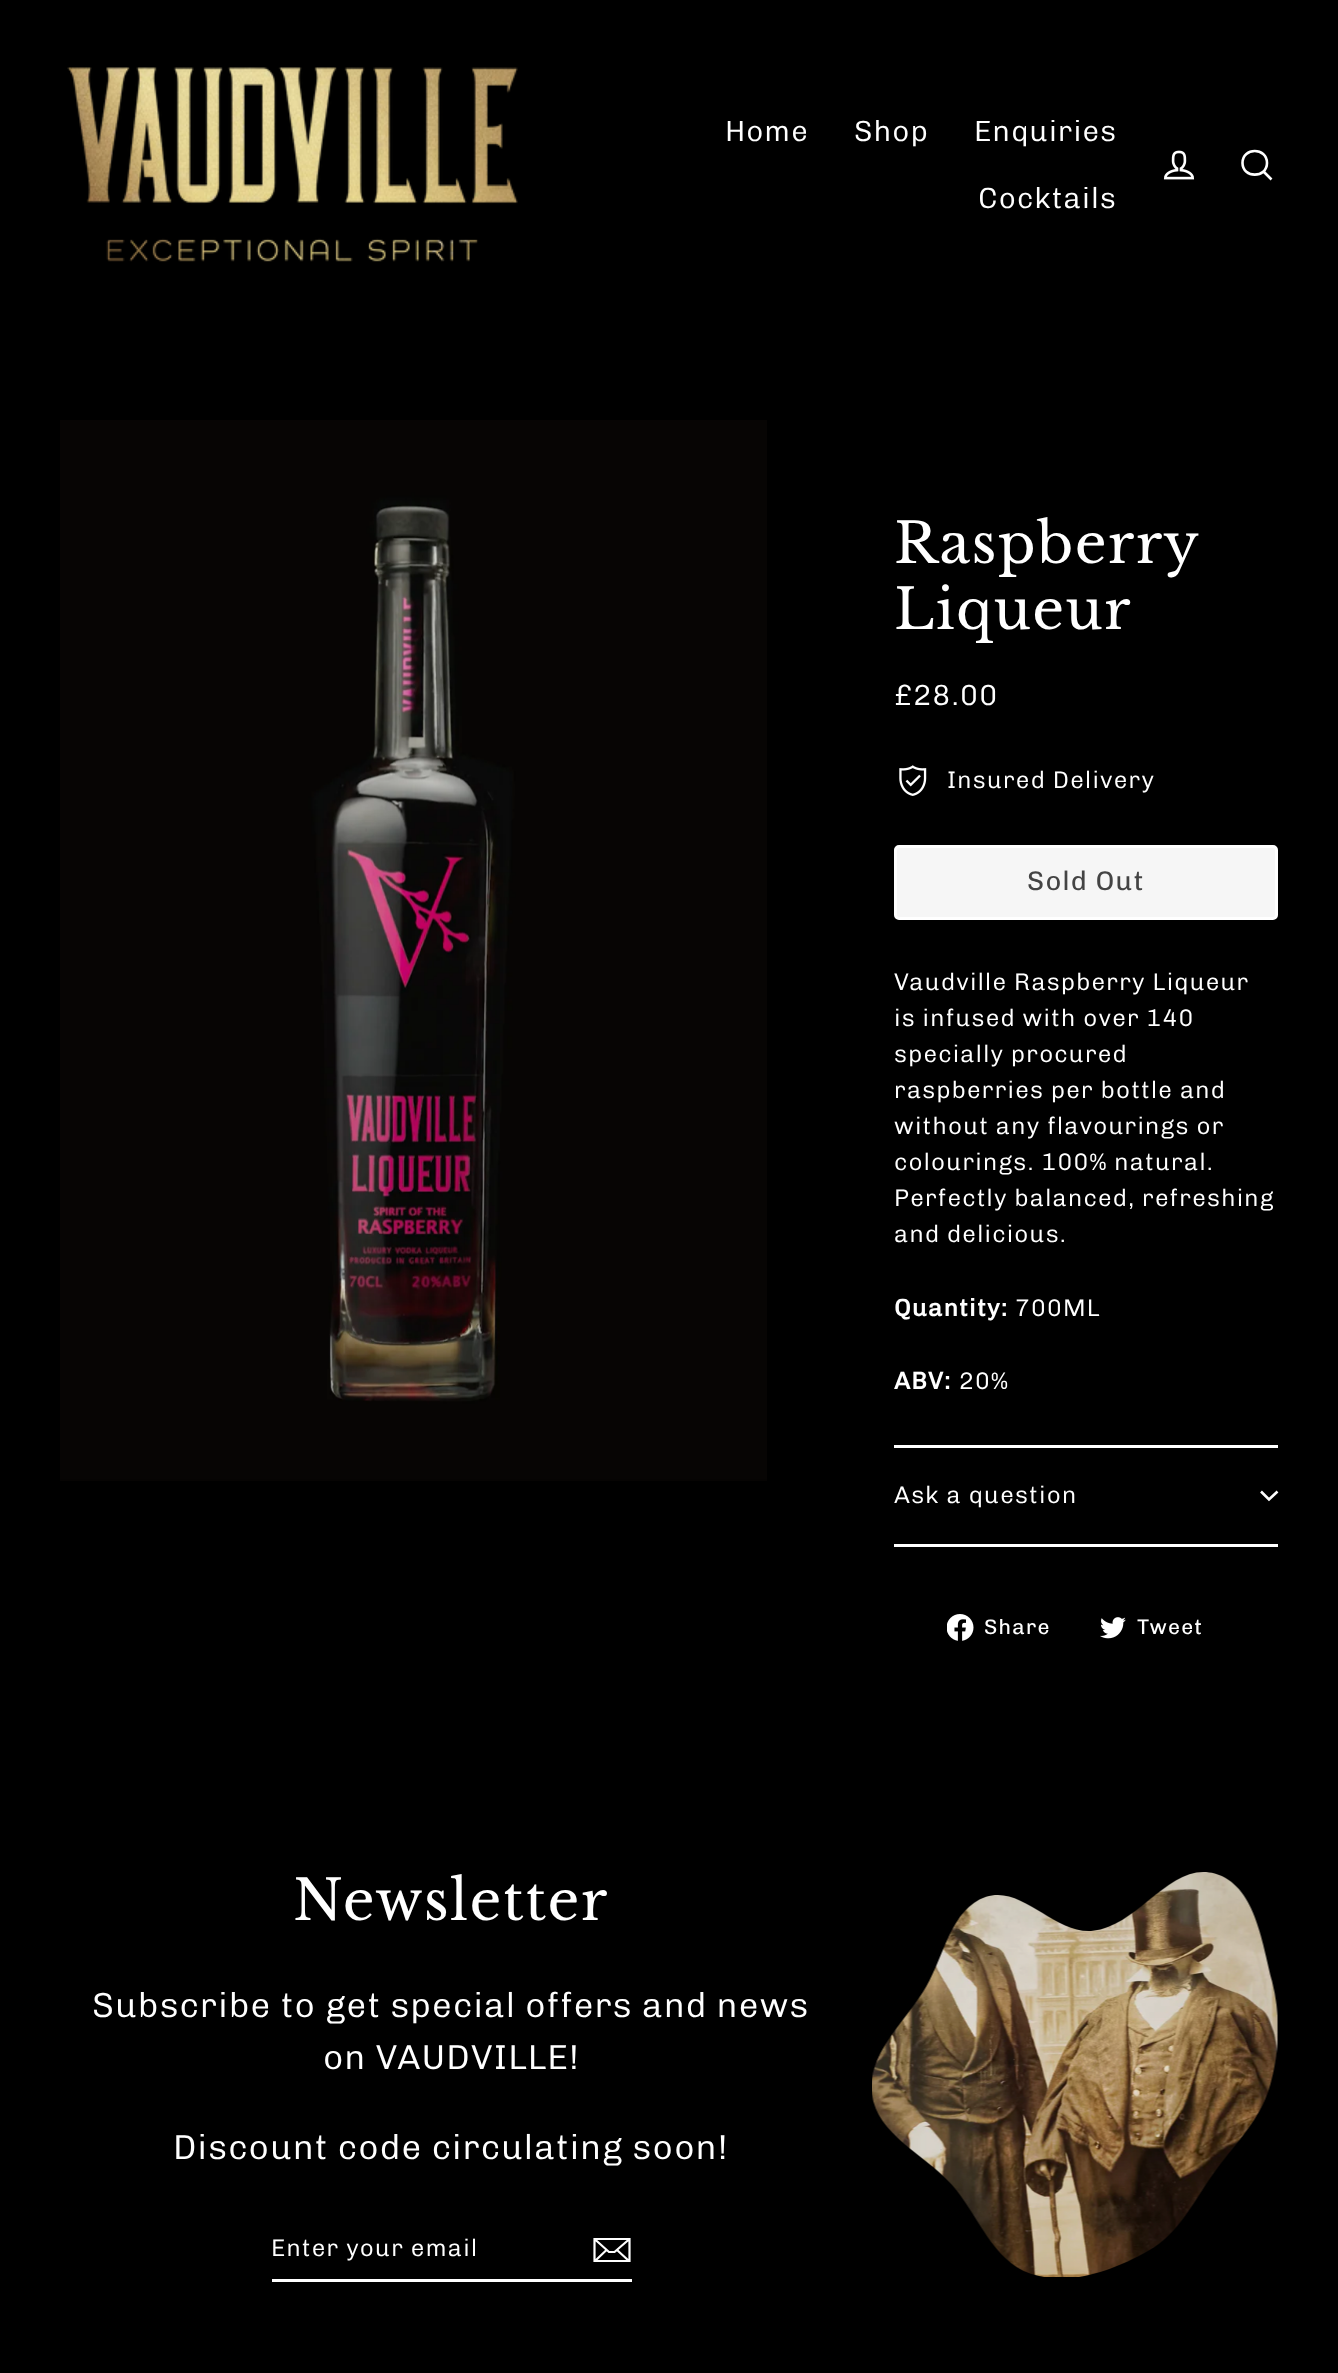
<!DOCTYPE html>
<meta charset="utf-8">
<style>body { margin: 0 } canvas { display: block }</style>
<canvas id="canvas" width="1338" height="2373"></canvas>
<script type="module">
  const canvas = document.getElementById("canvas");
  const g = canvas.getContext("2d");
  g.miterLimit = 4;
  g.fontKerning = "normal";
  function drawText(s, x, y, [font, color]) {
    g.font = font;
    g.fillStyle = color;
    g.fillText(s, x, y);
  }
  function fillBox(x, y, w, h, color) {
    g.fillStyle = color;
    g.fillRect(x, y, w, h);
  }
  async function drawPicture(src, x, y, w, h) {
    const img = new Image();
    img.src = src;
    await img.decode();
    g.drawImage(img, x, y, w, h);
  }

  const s1 = ["300 29.25px Chivo", "#FFFFFF"];
  const s2 = ["55.5px Libre Baskerville", "#FFFFFF"];
  const s3 = ["300 24px Chivo", "#FFFFFF"];
  const s4 = ["27px Chivo", "#444444"];
  const s5 = ["bold 24px Chivo", "#FFFFFF"];
  const s6 = ["21px Chivo", "#FFFFFF"];
  const s7 = ["300 34.8px Chivo", "#FFFFFF"];

  fillBox(0, 0, 1338, 2373, "#000000");
  await drawPicture("pic1.png", 67, 67, 451, 195);
  g.letterSpacing = "1.2px";
  drawText("Home", 725, 141, s1);
  drawText("Shop", 854, 141, s1);
  drawText("Enquiries", 974, 141, s1);
  drawText("Cocktails", 978, 208, s1);
  await drawPicture("pic2.png", 1163, 150, 32, 30);
  g.beginPath();
  g.moveTo(1267, 163);
  g.bezierCurveTo(1267, 178.5, 1242.5, 178.5, 1242.5, 163);
  g.bezierCurveTo(1242.5, 147, 1267, 147, 1267, 163);
  g.closePath();
  g.moveTo(1271.5, 179.5);
  g.lineTo(1263.5, 171.5);
  g.strokeStyle = "#FFFFFF";
  g.lineWidth = 2.6;
  g.stroke();
  await drawPicture("pic3.png", 60, 420, 707, 1061);
  g.letterSpacing = "1.4px";
  drawText("Raspberry", 894, 563, s2);
  drawText("Liqueur", 894, 629, s2);
  g.letterSpacing = "1.2px";
  drawText("£28.00", 894, 705, s1);
  await drawPicture("pic4.png", 899, 765, 28, 31);
  drawText("Insured Delivery", 947, 788, s3);
  g.fillStyle = "#F6F6F6";
  g.beginPath();
  g.roundRect(895.5, 846.5, 381, 72, 3.5);
  g.fill();
  g.lineWidth = 3;
  g.stroke();
  g.letterSpacing = "1.25px";
  drawText("Sold Out", 1027, 890, s4);
  g.letterSpacing = "1.2px";
  drawText("Vaudville Raspberry Liqueur", 894, 990, s3);
  drawText("is infused with over 140", 894, 1026, s3);
  drawText("specially procured", 894, 1062, s3);
  drawText("raspberries per bottle and", 894, 1098, s3);
  drawText("without any flavourings or", 894, 1134, s3);
  drawText("colourings. 100% natural.", 894, 1170, s3);
  drawText("Perfectly balanced, refreshing", 894, 1206, s3);
  drawText("and delicious.", 894, 1242, s3);
  drawText("Quantity:", 894, 1316, s5);
  drawText("700ML", 1015, 1316, s3);
  drawText("ABV:", 894, 1389, s5);
  drawText("20%", 959, 1389, s3);
  fillBox(894, 1544, 384, 3, "#FFFFFF");
  fillBox(894, 1445, 384, 3, "#FFFFFF");
  drawText("Ask a question", 894, 1503, s3);
  g.beginPath();
  g.moveTo(1261, 1491.5);
  g.lineTo(1269, 1499.5);
  g.lineTo(1277.5, 1491.5);
  g.lineWidth = 2.6;
  g.stroke();
  await drawPicture("pic5.png", 947, 1614, 27, 27);
  drawText("Share", 984, 1634, s6);
  await drawPicture("pic6.png", 1100, 1617, 26, 22);
  drawText("Tweet", 1137, 1634, s6);
  g.letterSpacing = "1.4px";
  drawText("Newsletter", 293, 1920, s2);
  g.letterSpacing = "1.2px";
  drawText("Subscribe to get special offers and news", 92, 2017, s7);
  drawText("on VAUDVILLE!", 323, 2069, s7);
  drawText("Discount code circulating soon!", 173, 2159, s7);
  fillBox(272, 2279, 360, 3, "#FFFFFF");
  drawText("Enter your email", 271, 2256, s3);
  g.beginPath();
  g.moveTo(629.5, 2261);
  g.lineTo(594.5, 2261);
  g.lineTo(594.5, 2239);
  g.lineTo(629.5, 2239);
  g.closePath();
  g.moveTo(594.5, 2239);
  g.lineTo(609, 2252);
  g.lineTo(614.5, 2252);
  g.lineTo(629.5, 2239);
  g.moveTo(606.5, 2250);
  g.lineTo(595, 2261);
  g.moveTo(629, 2261);
  g.lineTo(617, 2250);
  g.lineWidth = 2.2;
  g.stroke();
  await drawPicture("pic7.png", 872, 1872, 406, 405);
</script>
